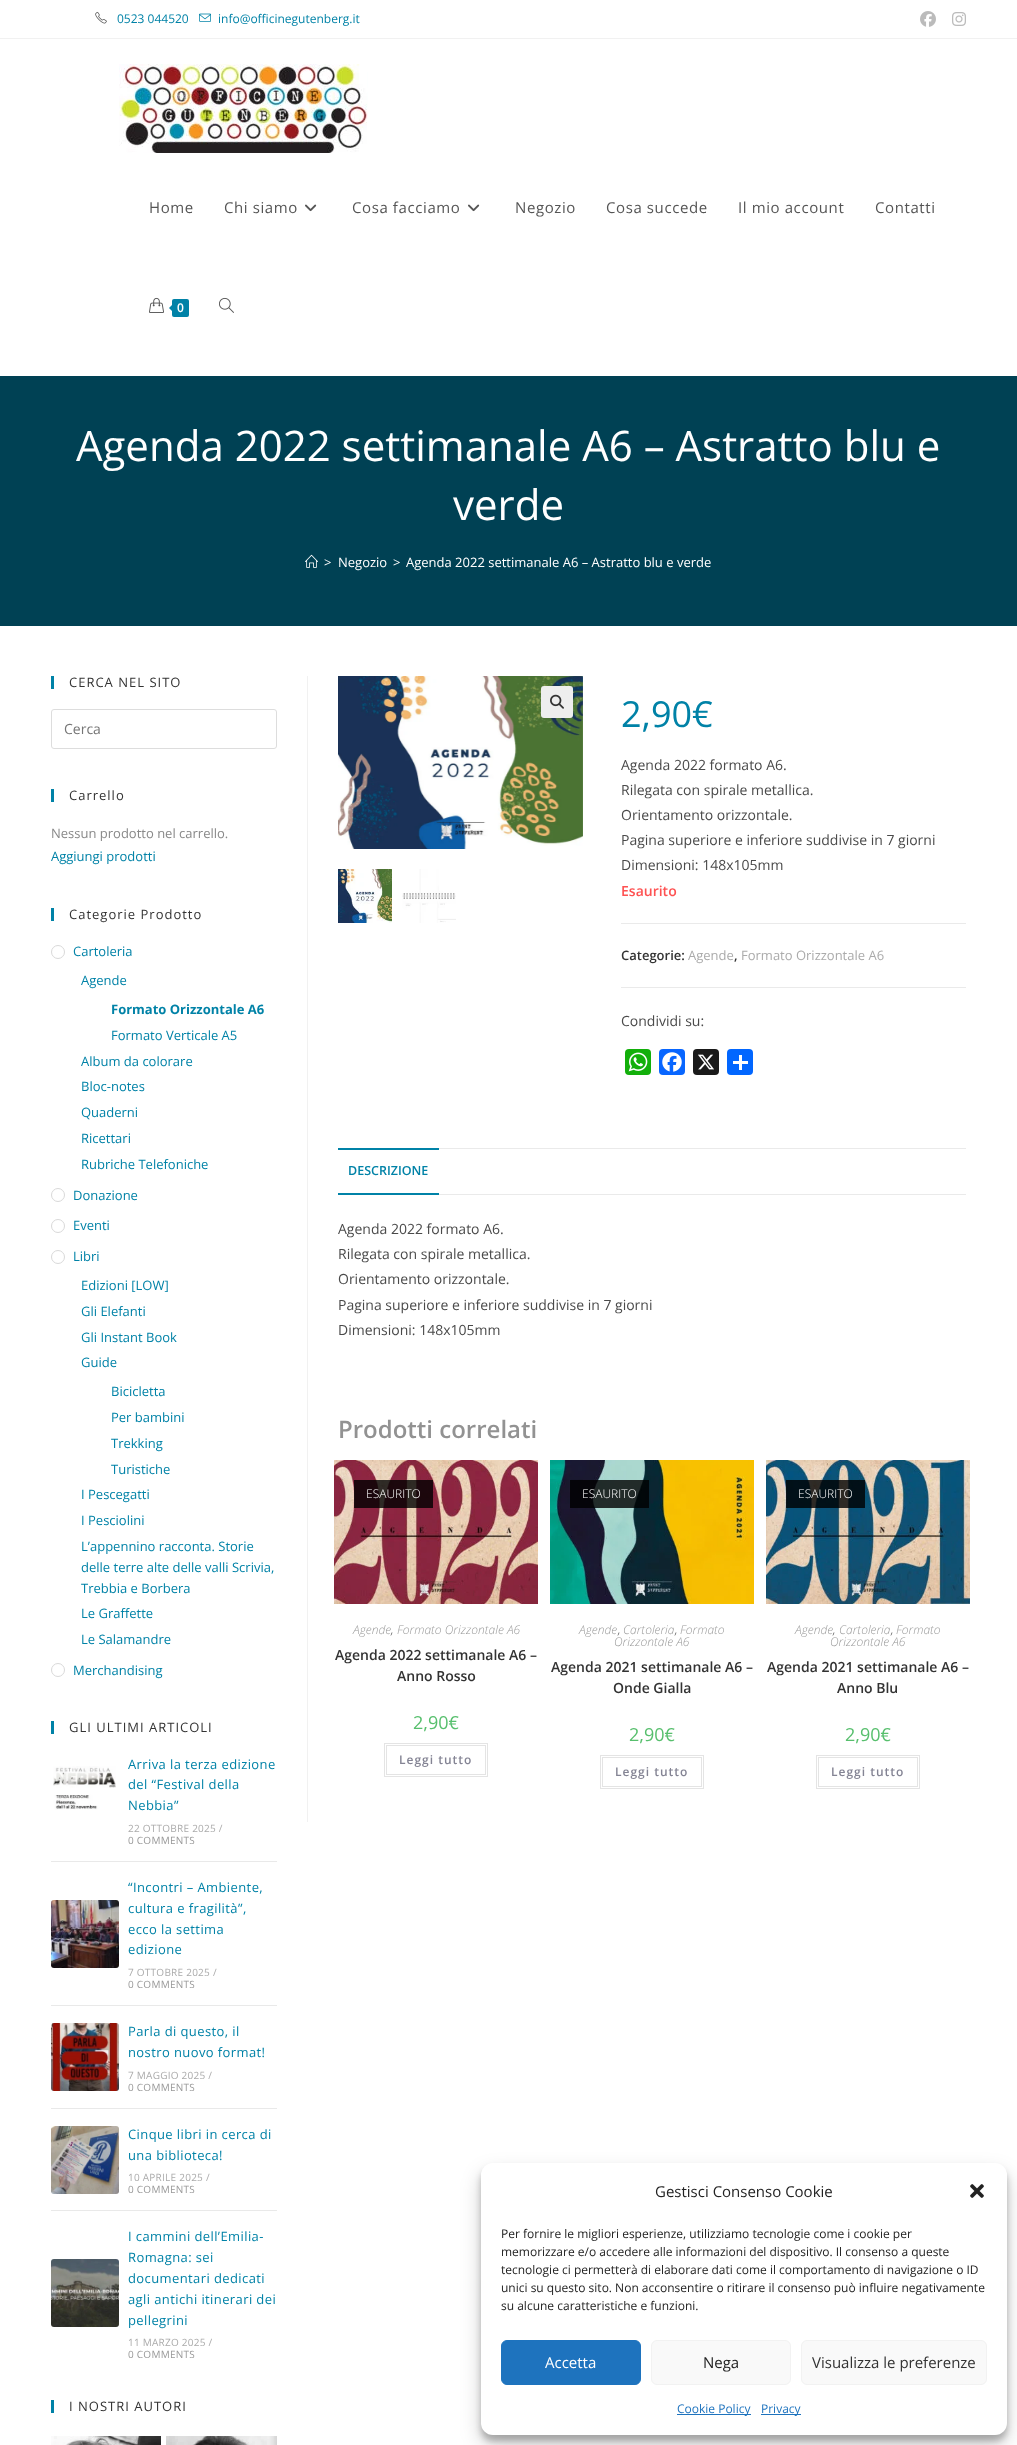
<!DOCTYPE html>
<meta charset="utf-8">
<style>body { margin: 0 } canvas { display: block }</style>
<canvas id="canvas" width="1017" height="2445"></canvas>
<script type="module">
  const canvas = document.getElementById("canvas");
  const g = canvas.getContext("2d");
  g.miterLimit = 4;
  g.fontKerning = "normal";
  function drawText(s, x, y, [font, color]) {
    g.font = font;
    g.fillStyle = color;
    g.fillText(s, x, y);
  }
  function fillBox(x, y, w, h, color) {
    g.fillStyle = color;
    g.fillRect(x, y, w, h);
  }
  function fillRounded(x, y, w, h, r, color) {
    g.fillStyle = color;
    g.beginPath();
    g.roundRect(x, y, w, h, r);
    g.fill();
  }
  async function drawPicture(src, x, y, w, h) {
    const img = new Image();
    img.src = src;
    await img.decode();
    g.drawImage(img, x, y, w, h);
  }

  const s1 = ["12px Open Sans", "#0082A7"];
  const s2 = ["15px Open Sans", "#555555"];
  const s3 = ["600 12px Open Sans", "#FFFFFF"];
  const s4 = ["42px Open Sans", "#FFFFFF"];
  const s5 = ["13px Open Sans", "#FFFFFF"];
  const s6 = ["13px Open Sans", "#333333"];
  const s7 = ["14px Open Sans", "#757575"];
  const s8 = ["13px Open Sans", "#898989"];
  const s9 = ["13px Open Sans", "#0082A7"];
  const s10 = ["bold 13px Open Sans", "#0082A7"];
  const s11 = ["10px Open Sans", "#ABABAB"];
  const s12 = ["10px Open Sans", "#999999"];
  const s13 = ["36px Open Sans", "#0082A7"];
  const s14 = ["14px Open Sans", "#4A4A4A"];
  const s15 = ["600 14px Open Sans", "#FE5252"];
  const s16 = ["600 13px Open Sans", "#333333"];
  const s17 = ["13px Open Sans", "#ABABAB"];
  const s18 = ["600 12.5px Open Sans", "#0082A7"];
  const s19 = ["600 24px Open Sans", "#929292"];
  const s20 = ["300 12px Open Sans", "#FFFFFF"];
  const s21 = ["italic 300 12px Open Sans", "#999999"];
  const s22 = ["italic 300 12px Open Sans", "#4A4A4A"];
  const s23 = ["600 14px Open Sans", "#333333"];
  const s24 = ["18px Open Sans", "#57BF6D"];
  const s25 = ["600 12px Open Sans", "#848494"];
  const s26 = ["15px Open Sans", "#222222"];
  const s27 = ["12px Open Sans", "#222222"];
  const s28 = ["15px Open Sans", "#FFFFFF"];
  const s29 = ["15px Open Sans", "#333333"];
  const s30 = ["12px Open Sans", "#1E73BE"];

  fillBox(0, 0, 1017, 2445, "#FFFFFF");
  fillBox(0, 38, 1017, 1, "#F1F1F1");
  await drawPicture("pic1.png", 95, 11, 12, 13);
  drawText("0523 044520", 117, 23, s1);
  await drawPicture("pic2.png", 199, 13, 12, 9);
  drawText("info@officinegutenberg.it", 218, 23, s1);
  await drawPicture("pic3.png", 920, 11, 16, 16);
  await drawPicture("pic4.png", 952, 12, 14, 14);
  await drawPicture("pic5.png", 119, 64, 249, 89);
  g.letterSpacing = "0.6px";
  drawText("Home", 149, 213, s2);
  drawText("Chi siamo", 224, 213, s2);
  await drawPicture("pic6.png", 305, 204, 12, 8);
  drawText("Cosa facciamo", 352, 213, s2);
  await drawPicture("pic6.png", 468, 204, 12, 8);
  drawText("Negozio", 515, 213, s2);
  drawText("Cosa succede", 606, 213, s2);
  drawText("Il mio account", 738, 213, s2);
  drawText("Contatti", 875, 213, s2);
  await drawPicture("pic7.png", 149, 297, 15, 16);
  fillRounded(172, 299, 17, 18, 2, "#0082A7");
  g.beginPath();
  g.moveTo(174, 303);
  g.lineTo(174, 313);
  g.lineTo(169, 308);
  g.closePath();
  g.fill();
  g.letterSpacing = "0px";
  drawText("0", 177, 312, s3);
  await drawPicture("pic8.png", 219, 297, 15, 16);
  fillBox(0, 376, 1017, 250, "#004154");
  drawText("Agenda 2022 settimanale A6 – Astratto blu e", 76, 461, s4);
  drawText("verde", 453, 520, s4);
  await drawPicture("pic9.png", 305, 554, 13, 14);
  drawText(">", 324, 567, s5);
  drawText("Negozio", 338, 567, s5);
  drawText(">", 393, 567, s5);
  drawText("Agenda 2022 settimanale A6 – Astratto blu e verde", 406, 567, s5);
  fillBox(51, 676, 3, 13, "#0082A7");
  g.letterSpacing = "1px";
  drawText("CERCA NEL SITO", 69, 687, s6);
  g.beginPath();
  g.roundRect(51.5, 709.5, 225, 39, 2.5);
  g.strokeStyle = "#DDDDDD";
  g.stroke();
  g.letterSpacing = "0px";
  drawText("Cerca", 64, 734, s7);
  fillBox(51, 789, 3, 13, "#0082A7");
  g.letterSpacing = "1px";
  drawText("Carrello", 69, 800, s6);
  g.letterSpacing = "0px";
  drawText("Nessun prodotto nel carrello.", 51, 838, s8);
  drawText("Aggiungi prodotti", 51, 861, s9);
  fillBox(51, 908, 3, 13, "#0082A7");
  g.letterSpacing = "1px";
  drawText("Categorie Prodotto", 69, 919, s6);
  g.beginPath();
  g.arc(58, 952, 6.5, 0, Math.PI * 2);
  g.strokeStyle = "#D9D9D9";
  g.stroke();
  g.letterSpacing = "0px";
  drawText("Cartoleria", 73, 956, s9);
  drawText("Agende", 81, 985, s9);
  drawText("Formato Orizzontale A6", 111, 1014, s10);
  drawText("Formato Verticale A5", 111, 1040, s9);
  drawText("Album da colorare", 81, 1066, s9);
  drawText("Bloc-notes", 81, 1091, s9);
  drawText("Quaderni", 81, 1117, s9);
  drawText("Ricettari", 81, 1143, s9);
  drawText("Rubriche Telefoniche", 81, 1169, s9);
  g.beginPath();
  g.arc(58, 1195, 6.5, 0, Math.PI * 2);
  g.stroke();
  drawText("Donazione", 73, 1200, s9);
  g.beginPath();
  g.arc(58, 1226, 6.5, 0, Math.PI * 2);
  g.stroke();
  drawText("Eventi", 73, 1230, s9);
  g.beginPath();
  g.arc(58, 1257, 6.5, 0, Math.PI * 2);
  g.stroke();
  drawText("Libri", 73, 1261, s9);
  drawText("Edizioni [LOW]", 81, 1290, s9);
  drawText("Gli Elefanti", 81, 1316, s9);
  drawText("Gli Instant Book", 81, 1342, s9);
  drawText("Guide", 81, 1367, s9);
  drawText("Bicicletta", 111, 1396, s9);
  drawText("Per bambini", 111, 1422, s9);
  drawText("Trekking", 111, 1448, s9);
  drawText("Turistiche", 111, 1474, s9);
  drawText("I Pescegatti", 81, 1499, s9);
  drawText("I Pesciolini", 81, 1525, s9);
  drawText("L’appennino racconta. Storie", 81, 1551, s9);
  drawText("delle terre alte delle valli Scrivia,", 81, 1572, s9);
  drawText("Trebbia e Borbera", 81, 1593, s9);
  drawText("Le Graffette", 81, 1618, s9);
  drawText("Le Salamandre", 81, 1644, s9);
  g.beginPath();
  g.arc(58, 1670, 6.5, 0, Math.PI * 2);
  g.stroke();
  drawText("Merchandising", 73, 1675, s9);
  fillBox(51, 1721, 3, 13, "#0082A7");
  g.letterSpacing = "1px";
  drawText("GLI ULTIMI ARTICOLI", 69, 1732, s6);
  await drawPicture("pic10.png", 53, 1766, 63, 44);
  g.letterSpacing = "0.4px";
  drawText("Arriva la terza edizione", 128, 1769, s9);
  drawText("del “Festival della", 128, 1789, s9);
  drawText("Nebbia”", 128, 1810, s9);
  g.letterSpacing = "0.25px";
  drawText("22 OTTOBRE 2025 /", 128, 1832, s11);
  drawText("0 COMMENTS", 128, 1844, s12);
  fillBox(51, 1861, 226, 1, "#E9E9E9");
  await drawPicture("pic11.png", 51, 1900, 68, 68);
  g.letterSpacing = "0.4px";
  drawText("“Incontri – Ambiente,", 128, 1892, s9);
  drawText("cultura e fragilità”,", 128, 1913, s9);
  drawText("ecco la settima", 128, 1934, s9);
  drawText("edizione", 128, 1954, s9);
  g.letterSpacing = "0.25px";
  drawText("7 OTTOBRE 2025 /", 128, 1976, s11);
  drawText("0 COMMENTS", 128, 1988, s12);
  fillBox(51, 2005, 226, 1, "#E9E9E9");
  await drawPicture("pic12.png", 51, 2023, 68, 68);
  g.letterSpacing = "0.4px";
  drawText("Parla di questo, il", 128, 2036, s9);
  drawText("nostro nuovo format!", 128, 2057, s9);
  g.letterSpacing = "0.25px";
  drawText("7 MAGGIO 2025 /", 128, 2079, s11);
  drawText("0 COMMENTS", 128, 2091, s12);
  fillBox(51, 2108, 226, 1, "#E9E9E9");
  await drawPicture("pic13.png", 51, 2126, 68, 68);
  g.letterSpacing = "0.4px";
  drawText("Cinque libri in cerca di", 128, 2139, s9);
  drawText("una biblioteca!", 128, 2160, s9);
  g.letterSpacing = "0.25px";
  drawText("10 APRILE 2025 /", 128, 2181, s11);
  drawText("0 COMMENTS", 128, 2193, s12);
  fillBox(51, 2210, 226, 1, "#E9E9E9");
  await drawPicture("pic14.png", 51, 2259, 68, 68);
  g.letterSpacing = "0.4px";
  drawText("I cammini dell’Emilia-", 128, 2241, s9);
  drawText("Romagna: sei", 128, 2262, s9);
  drawText("documentari dedicati", 128, 2283, s9);
  drawText("agli antichi itinerari dei", 128, 2304, s9);
  drawText("pellegrini", 128, 2325, s9);
  g.letterSpacing = "0.25px";
  drawText("11 MARZO 2025 /", 128, 2346, s11);
  drawText("0 COMMENTS", 128, 2358, s12);
  fillBox(51, 2400, 3, 13, "#0082A7");
  g.letterSpacing = "1px";
  drawText("I NOSTRI AUTORI", 69, 2411, s6);
  await drawPicture("pic15.png", 51, 2436, 110, 9);
  await drawPicture("pic16.png", 166, 2436, 111, 9);
  fillBox(307, 676, 1, 1146, "#F1F1F1");
  await drawPicture("pic17.png", 338, 676, 245, 173);
  fillRounded(541, 686, 32, 32, 3, "#EEEEEE");
  await drawPicture("pic18.png", 550, 694, 14, 15);
  await drawPicture("pic19.png", 338, 869, 54, 54);
  await drawPicture("pic20.png", 402, 869, 54, 54);
  g.letterSpacing = "0px";
  drawText("2,90€", 621, 727, s13);
  drawText("Agenda 2022 formato A6.", 621, 770, s14);
  drawText("Rilegata con spirale metallica.", 621, 795, s14);
  drawText("Orientamento orizzontale.", 621, 820, s14);
  drawText("Pagina superiore e inferiore suddivise in 7 giorni", 621, 845, s14);
  drawText("Dimensioni: 148x105mm", 621, 870, s14);
  drawText("Esaurito", 621, 896, s15);
  fillBox(621, 923, 345, 1, "#EAEAEA");
  fillBox(621, 987, 345, 1, "#EAEAEA");
  drawText("Categorie:", 621, 960, s16);
  drawText("Agende", 688, 960, s17);
  drawText(",", 734, 960, s16);
  drawText("Formato Orizzontale A6", 741, 960, s17);
  drawText("Condividi su:", 621, 1026, s14);
  fillRounded(625, 1049, 26, 26, 4, "#12AF0A");
  await drawPicture("pic21.png", 628, 1052, 20, 20);
  fillRounded(659, 1049, 26, 26, 4, "#0866FF");
  await drawPicture("pic22.png", 662, 1052, 20, 20);
  fillRounded(693, 1049, 26, 26, 4, "#1A1A1A");
  await drawPicture("pic23.png", 698, 1054, 16, 16);
  fillRounded(727, 1049, 26, 26, 4, "#0166FF");
  fillBox(739, 1055, 3, 15, "#FFFFFF");
  fillBox(733, 1061, 15, 3, "#FFFFFF");
  fillBox(439, 1148, 527, 1, "#EAEAEA");
  fillBox(439, 1194, 527, 1, "#EAEAEA");
  fillBox(338, 1148, 101, 2, "#0082A7");
  fillBox(338, 1193, 101, 2, "#0082A7");
  drawText("DESCRIZIONE", 348, 1175, s18);
  drawText("Agenda 2022 formato A6.", 338, 1234, s14);
  drawText("Rilegata con spirale metallica.", 338, 1259, s14);
  drawText("Orientamento orizzontale.", 338, 1284, s14);
  drawText("Pagina superiore e inferiore suddivise in 7 giorni", 338, 1310, s14);
  drawText("Dimensioni: 148x105mm", 338, 1335, s14);
  drawText("Prodotti correlati", 338, 1438, s19);
  await drawPicture("pic24.png", 334, 1460, 204, 144);
  fillBox(354, 1480, 79, 28, "rgba(0, 0, 0, 0.8)");
  drawText("ESAURITO", 366, 1498, s20);
  drawText("Agende", 353, 1634, s21);
  drawText(",", 391, 1634, s22);
  drawText("Formato Orizzontale A6", 397, 1634, s21);
  drawText("Agenda 2022 settimanale A6 –", 335, 1660, s23);
  drawText("Anno Rosso", 397, 1681, s23);
  drawText("2,90€", 413, 1729, s24);
  g.strokeStyle = "#E4E4E4";
  g.strokeRect(384.5, 1743.5, 103, 33);
  g.strokeRect(386.5, 1745.5, 99, 29);
  g.letterSpacing = "1px";
  drawText("Leggi tutto", 399, 1764, s25);
  await drawPicture("pic25.png", 550, 1460, 204, 144);
  fillBox(570, 1480, 79, 28, "rgba(0, 0, 0, 0.8)");
  g.letterSpacing = "0px";
  drawText("ESAURITO", 582, 1498, s20);
  drawText("Agende", 579, 1634, s21);
  drawText("Cartoleria", 623, 1634, s21);
  drawText("Formato", 680, 1634, s21);
  drawText(",", 618, 1634, s22);
  drawText(",", 675, 1634, s22);
  drawText("Orizzontale A6", 614, 1646, s21);
  drawText("Agenda 2021 settimanale A6 –", 551, 1672, s23);
  drawText("Onde Gialla", 613, 1693, s23);
  drawText("2,90€", 629, 1741, s24);
  g.strokeRect(600.5, 1755.5, 103, 33);
  g.strokeRect(602.5, 1757.5, 99, 29);
  g.letterSpacing = "1px";
  drawText("Leggi tutto", 615, 1776, s25);
  await drawPicture("pic26.png", 766, 1460, 204, 144);
  fillBox(786, 1480, 79, 28, "rgba(0, 0, 0, 0.8)");
  g.letterSpacing = "0px";
  drawText("ESAURITO", 798, 1498, s20);
  drawText("Agende", 795, 1634, s21);
  drawText("Cartoleria", 839, 1634, s21);
  drawText("Formato", 896, 1634, s21);
  drawText(",", 833, 1634, s22);
  drawText(",", 891, 1634, s22);
  drawText("Orizzontale A6", 830, 1646, s21);
  drawText("Agenda 2021 settimanale A6 –", 767, 1672, s23);
  drawText("Anno Blu", 837, 1693, s23);
  drawText("2,90€", 845, 1741, s24);
  g.strokeRect(816.5, 1755.5, 103, 33);
  g.strokeRect(818.5, 1757.5, 99, 29);
  g.letterSpacing = "1px";
  drawText("Leggi tutto", 831, 1776, s25);
  g.fillStyle = "rgba(0, 0, 0, 0.23)";
  g.filter = "blur(3px)";
  g.beginPath();
  g.roundRect(481, 2169, 526, 272, 12);
  g.fill();
  g.filter = "none";
  g.fillStyle = "rgba(0, 0, 0, 0.19)";
  g.filter = "blur(10px)";
  g.beginPath();
  g.roundRect(481, 2173, 526, 272, 12);
  g.fill();
  g.filter = "none";
  fillRounded(481, 2163, 526, 272, 12, "#FFFFFF");
  g.letterSpacing = "0px";
  drawText("Gestisci Consenso Cookie", 655, 2197, s26);
  await drawPicture("pic27.png", 970, 2184, 14, 14);
  drawText("Per fornire le migliori esperienze, utilizziamo tecnologie come i cookie per", 501, 2238, s27);
  drawText("memorizzare e/o accedere alle informazioni del dispositivo. Il consenso a queste", 501, 2256, s27);
  drawText("tecnologie ci permetterà di elaborare dati come il comportamento di navigazione o ID", 501, 2274, s27);
  drawText("unici su questo sito. Non acconsentire o ritirare il consenso può influire negativamente", 501, 2292, s27);
  drawText("su alcune caratteristiche e funzioni.", 501, 2310, s27);
  g.fillStyle = "#1E73BE";
  g.beginPath();
  g.roundRect(501.5, 2340.5, 139, 44, 5.5);
  g.fill();
  g.strokeStyle = "#1E73BE";
  g.stroke();
  drawText("Accetta", 545, 2368, s28);
  g.fillStyle = "#F9F9F9";
  g.beginPath();
  g.roundRect(651.5, 2340.5, 139, 44, 5.5);
  g.fill();
  g.strokeStyle = "#F2F2F2";
  g.stroke();
  drawText("Nega", 703, 2368, s26);
  g.fillStyle = "#F9F9F9";
  g.beginPath();
  g.roundRect(801.5, 2340.5, 185, 44, 5.5);
  g.fill();
  g.stroke();
  drawText("Visualizza le preferenze", 812, 2368, s29);
  fillBox(677, 2414, 74, 1, "#1E73BE");
  drawText("Cookie Policy", 677, 2413, s30);
  fillBox(761, 2414, 40, 1, "#1E73BE");
  drawText("Privacy", 761, 2413, s30);
</script>
